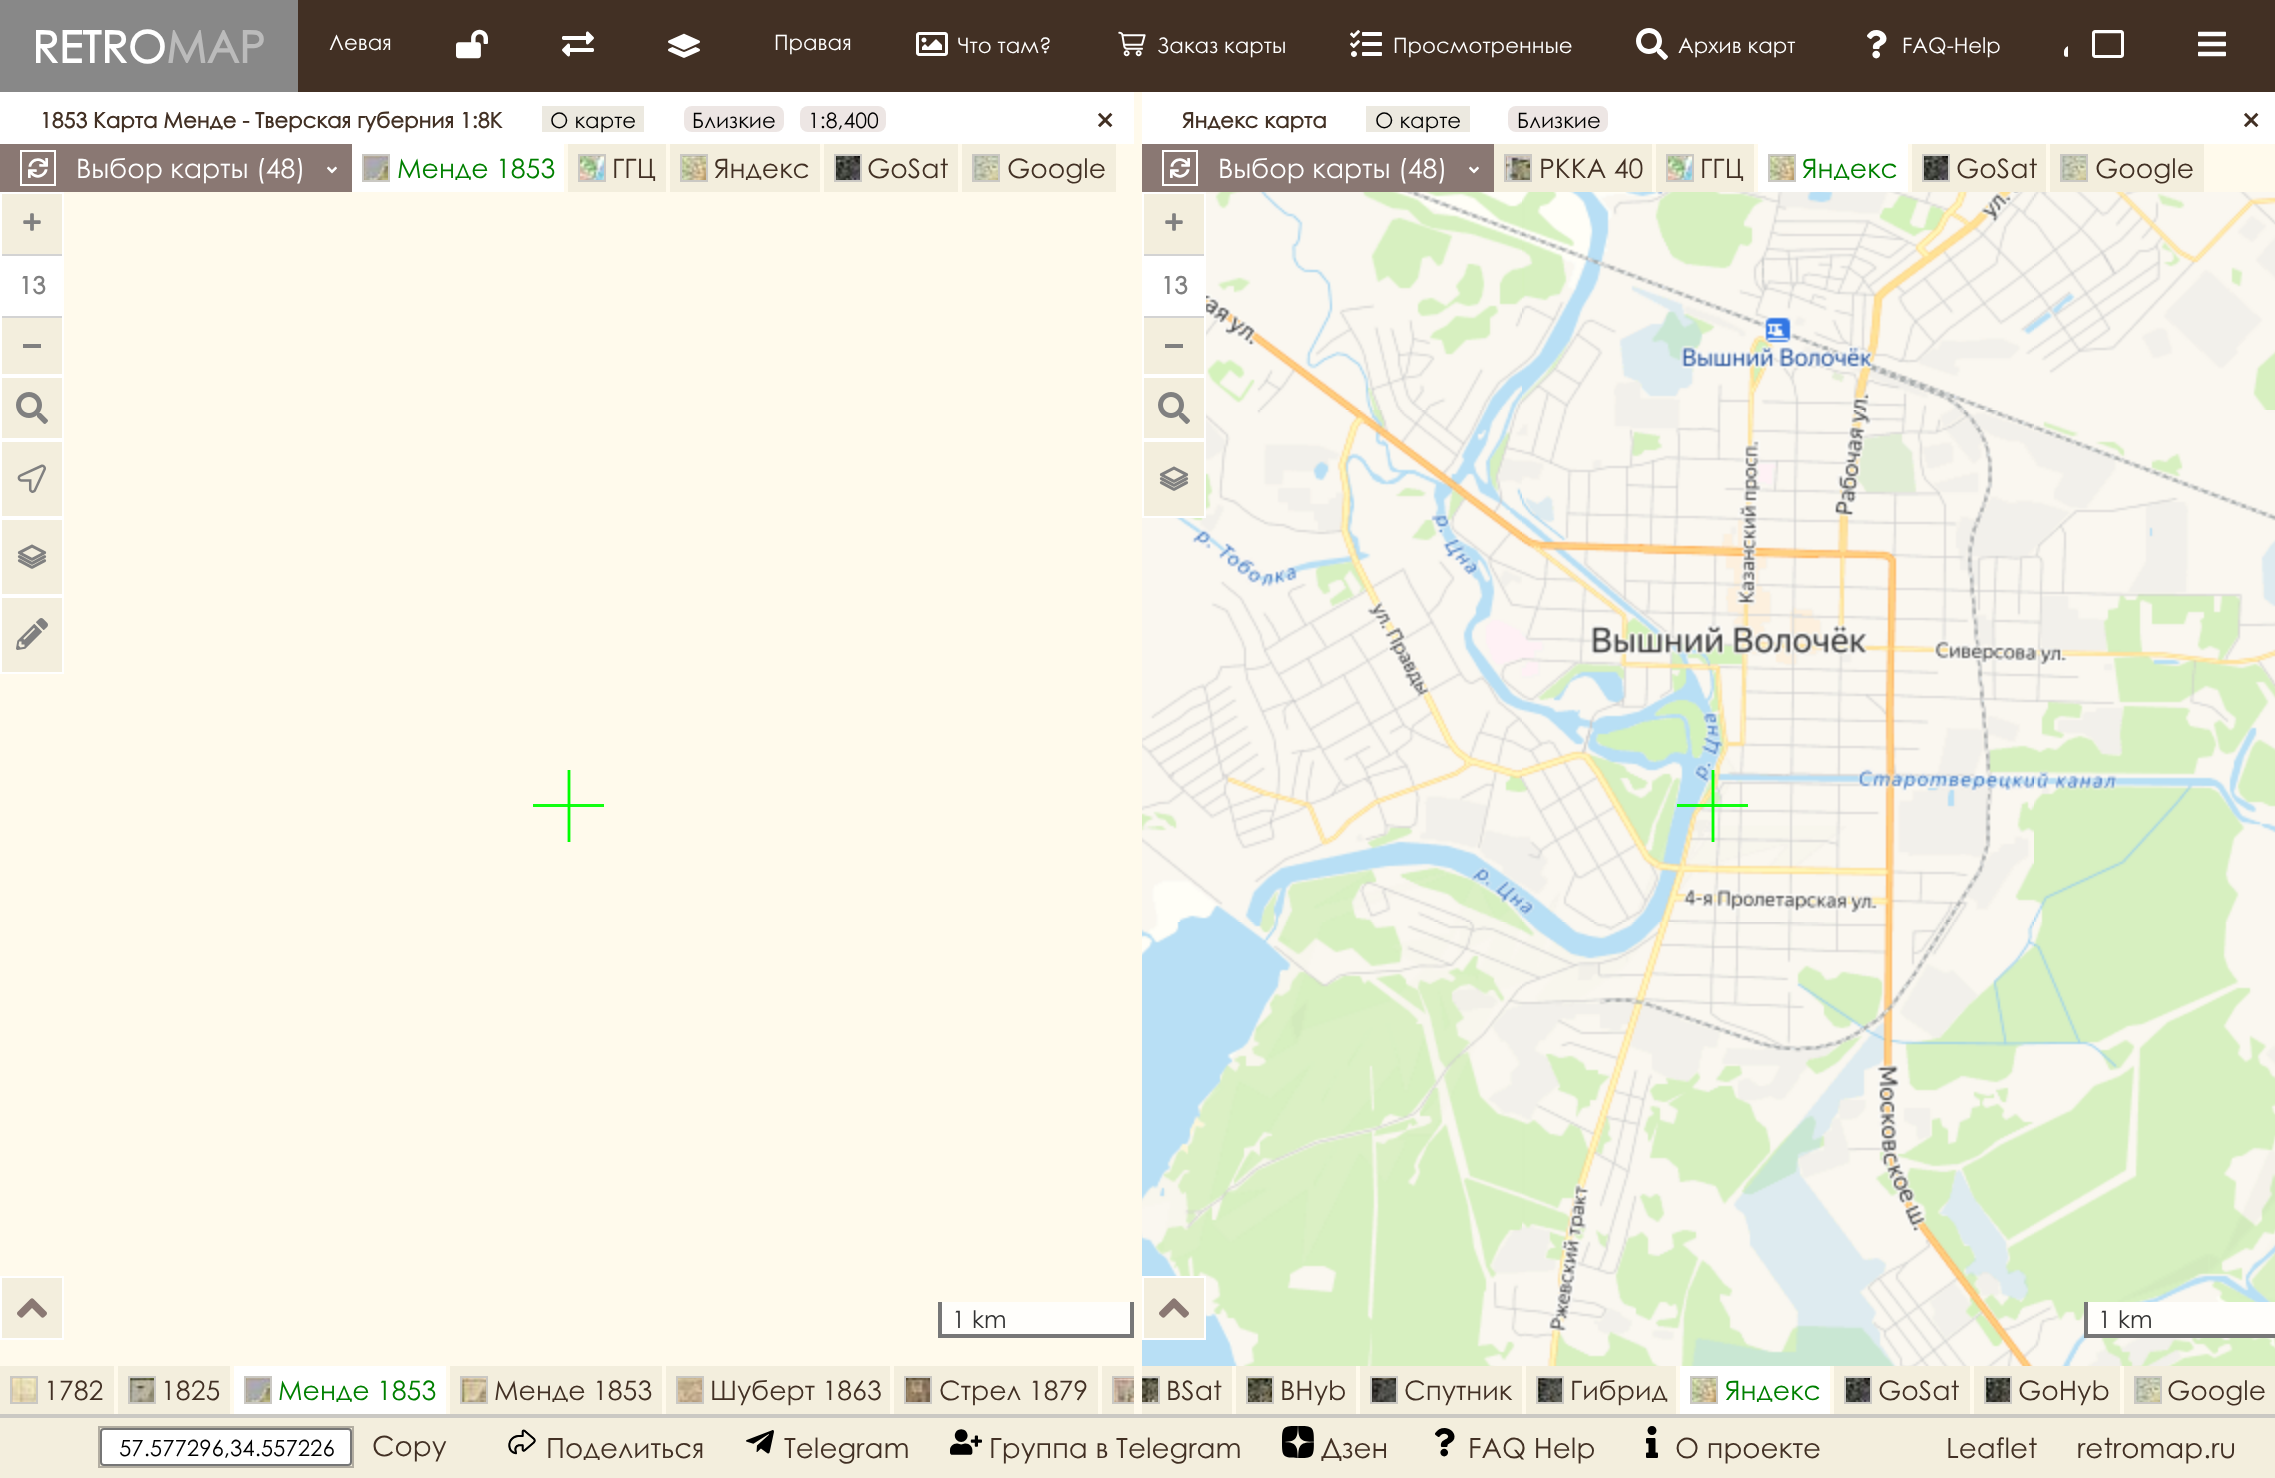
<!DOCTYPE html>
<meta charset="utf-8">
<style>body { margin: 0 } canvas { display: block }</style>
<canvas id="canvas" width="2275" height="1478"></canvas>
<script type="module">
  const canvas = document.getElementById("canvas");
  const g = canvas.getContext("2d");
  g.miterLimit = 4;
  g.fontKerning = "normal";
  function drawText(s, x, y, [font, color]) {
    g.font = font;
    g.fillStyle = color;
    g.fillText(s, x, y);
  }
  function fillBox(x, y, w, h, color) {
    g.fillStyle = color;
    g.fillRect(x, y, w, h);
  }
  function fillRounded(x, y, w, h, r, color) {
    g.fillStyle = color;
    g.beginPath();
    g.roundRect(x, y, w, h, r);
    g.fill();
  }
  async function drawPicture(src, x, y, w, h) {
    const img = new Image();
    img.src = src;
    await img.decode();
    g.drawImage(img, x, y, w, h);
  }

  const s1 = ["bold 44px Century Gothic", "#FFFFFF"];
  const s2 = ["bold 44px Century Gothic", "#BBBBBB"];
  const s3 = ["21.3px Century Gothic", "#FFFFFF"];
  const s4 = ["bold 21.3px Century Gothic", "#423024"];
  const s5 = ["21.3px Century Gothic", "#000000"];
  const s6 = ["bold 32px Century Gothic", "#423024"];
  const s7 = ["26.75px Century Gothic", "#FFFFFF"];
  const s8 = ["26.75px Century Gothic", "#008000"];
  const s9 = ["26.75px Century Gothic", "#423024"];
  const s10 = ["bold 24px Century Gothic", "#808080"];
  const s11 = ["24px Century Gothic", "#333333"];
  const s12 = ["22.25px Century Gothic", "#000000"];
  const s13 = ["27.75px Century Gothic", "#423024"];

  fillBox(0, 0, 2275, 1478, "#FFFAEC");
  fillBox(298, 0, 1977, 92, "#423024");
  fillBox(0, 0, 298, 92, "#888888");
  drawText("RETRO", 32, 63, s1);
  drawText("MAP", 166, 63, s2);
  drawText("Левая", 329, 50, s3);
  await drawPicture("pic1.png", 456, 29, 32, 30);
  await drawPicture("pic2.png", 562, 31, 32, 26);
  await drawPicture("pic3.png", 668, 33, 32, 25);
  drawText("Правая", 774, 50, s3);
  await drawPicture("pic4.png", 916, 32, 32, 24);
  drawText("Что там?", 958, 53, s3);
  await drawPicture("pic5.png", 1118, 31, 28, 26);
  drawText("Заказ карты", 1157, 53, s3);
  await drawPicture("pic6.png", 1350, 30, 32, 27);
  drawText("Просмотренные", 1393, 53, s3);
  await drawPicture("pic7.png", 1636, 28, 32, 32);
  drawText("Архив карт", 1678, 53, s3);
  await drawPicture("pic8.png", 1867, 30, 20, 29);
  drawText("FAQ-Help", 1902, 53, s3);
  await drawPicture("pic9.png", 2064, 46, 4, 11);
  await drawPicture("pic10.png", 2092, 30, 32, 28);
  await drawPicture("pic11.png", 2198, 31, 28, 26);
  fillBox(0, 92, 1134, 52, "#FFFFFF");
  drawText("1853 Карта Менде - Тверская губерния", 40, 128, s4);
  drawText("1:8K", 460, 128, s4);
  fillBox(542, 106, 102, 26, "#ECE9E0");
  drawText("О карте", 550, 128, s5);
  fillRounded(684, 106, 100, 26, 8, "#EDE6E4");
  drawText("Близкие", 692, 128, s5);
  fillRounded(800, 106, 86, 26, 8, "#EDE6E4");
  drawText("1:8,400", 808, 128, s5);
  drawText("×", 1095, 132, s6);
  fillBox(0, 144, 352, 48, "#8A7873");
  g.strokeStyle = "#FFFFFF";
  g.lineWidth = 2;
  g.strokeRect(21, 151, 34, 34);
  await drawPicture("pic12.png", 28, 158, 20, 20);
  drawText("Выбор карты (48)", 76, 178, s7);
  await drawPicture("pic13.png", 327, 166, 10, 8);
  fillBox(352, 144, 212, 48, "#FFFFFF");
  await drawPicture("pic14.png", 364, 156, 24, 24);
  g.strokeStyle = "#CAC8C3";
  g.strokeRect(363, 155, 26, 26);
  drawText("Менде 1853", 397, 178, s8);
  fillBox(568, 144, 98, 48, "#F3EEDD");
  await drawPicture("pic15.png", 580, 156, 24, 24);
  g.strokeRect(579, 155, 26, 26);
  drawText("ГГЦ", 612, 178, s9);
  fillBox(670, 144, 150, 48, "#F3EEDD");
  await drawPicture("pic16.png", 682, 156, 24, 24);
  g.strokeRect(681, 155, 26, 26);
  drawText("Яндекс", 714, 178, s9);
  fillBox(824, 144, 134, 48, "#F3EEDD");
  await drawPicture("pic17.png", 836, 156, 24, 24);
  g.strokeRect(835, 155, 26, 26);
  drawText("GoSat", 867, 178, s9);
  fillBox(962, 144, 154, 48, "#F3EEDD");
  await drawPicture("pic18.png", 974, 156, 24, 24);
  g.strokeRect(973, 155, 26, 26);
  drawText("Google", 1007, 178, s9);
  g.fillStyle = "#F3EEDD";
  g.beginPath();
  g.rect(1, 193, 62, 182);
  g.fill();
  g.strokeStyle = "#FFFFFF";
  g.stroke();
  await drawPicture("pic19.png", 23, 213, 18, 18);
  fillBox(2, 256, 60, 60, "#FFFFFF");
  fillBox(2, 254, 60, 2, "#D3D3D3");
  fillBox(2, 316, 60, 2, "#D3D3D3");
  drawText("13", 19, 294, s10);
  fillBox(23, 344, 18, 4, "#808080");
  g.fillStyle = "#F3EEDD";
  g.beginPath();
  g.rect(1, 377, 62, 62);
  g.fill();
  g.stroke();
  await drawPicture("pic20.png", 16, 392, 32, 32);
  g.beginPath();
  g.rect(1, 441, 62, 76);
  g.fill();
  g.stroke();
  await drawPicture("pic21.png", 17, 464, 29, 29);
  g.beginPath();
  g.rect(1, 519, 62, 76);
  g.fill();
  g.stroke();
  await drawPicture("pic22.png", 17, 544, 30, 25);
  g.beginPath();
  g.rect(1, 597, 62, 76);
  g.fill();
  g.stroke();
  await drawPicture("pic23.png", 16, 618, 32, 32);
  fillBox(942, 1302, 188, 32, "#FFFEFB");
  fillBox(1130, 1302, 4, 36, "#777777");
  fillBox(938, 1334, 196, 4, "#777777");
  fillBox(938, 1302, 4, 36, "#777777");
  drawText("1 km", 952, 1328, s11);
  g.beginPath();
  g.moveTo(569, 770);
  g.lineTo(569, 842);
  g.strokeStyle = "#00FF00";
  g.lineWidth = 2.8;
  g.stroke();
  fillBox(533, 804, 71, 3, "rgba(0, 255, 0, 0.93)");
  g.fillStyle = "#F3EEDD";
  g.beginPath();
  g.rect(1, 1277, 62, 62);
  g.fill();
  g.strokeStyle = "#FFFFFF";
  g.lineWidth = 2;
  g.stroke();
  await drawPicture("pic24.png", 17, 1298, 30, 20);
  fillBox(0, 1366, 1134, 48, "#F3EEDD");
  g.fillStyle = "#FFFAEC";
  g.beginPath();
  g.moveTo(118, 1366);
  g.lineTo(118, 1418);
  g.lineTo(114, 1414);
  g.lineTo(114, 1366);
  g.closePath();
  g.fill();
  await drawPicture("pic25.png", 12, 1378, 24, 24);
  g.strokeStyle = "#CAC8C3";
  g.strokeRect(11, 1377, 26, 26);
  drawText("1782", 44, 1400, s9);
  g.fillStyle = "#FFFAEC";
  g.beginPath();
  g.moveTo(234, 1366);
  g.lineTo(234, 1418);
  g.lineTo(230, 1414);
  g.lineTo(230, 1366);
  g.closePath();
  g.fill();
  await drawPicture("pic26.png", 130, 1378, 24, 24);
  g.strokeRect(129, 1377, 26, 26);
  drawText("1825", 161, 1400, s9);
  fillBox(234, 1366, 212, 48, "#FFFFFF");
  g.fillStyle = "#FFFAEC";
  g.beginPath();
  g.moveTo(450, 1366);
  g.lineTo(450, 1418);
  g.lineTo(446, 1414);
  g.lineTo(446, 1366);
  g.closePath();
  g.fill();
  await drawPicture("pic14.png", 246, 1378, 24, 24);
  g.strokeRect(245, 1377, 26, 26);
  drawText("Менде 1853", 278, 1400, s8);
  g.fillStyle = "#FFFAEC";
  g.beginPath();
  g.moveTo(666, 1366);
  g.lineTo(666, 1418);
  g.lineTo(662, 1414);
  g.lineTo(662, 1366);
  g.closePath();
  g.fill();
  await drawPicture("pic27.png", 462, 1378, 24, 24);
  g.strokeRect(461, 1377, 26, 26);
  drawText("Менде 1853", 494, 1400, s9);
  g.fillStyle = "#FFFAEC";
  g.beginPath();
  g.moveTo(894, 1366);
  g.lineTo(894, 1418);
  g.lineTo(890, 1414);
  g.lineTo(890, 1366);
  g.closePath();
  g.fill();
  await drawPicture("pic28.png", 678, 1378, 24, 24);
  g.strokeRect(677, 1377, 26, 26);
  drawText("Шуберт 1863", 710, 1400, s9);
  g.fillStyle = "#FFFAEC";
  g.beginPath();
  g.moveTo(1102, 1366);
  g.lineTo(1102, 1418);
  g.lineTo(1098, 1414);
  g.lineTo(1098, 1366);
  g.closePath();
  g.fill();
  await drawPicture("pic29.png", 906, 1378, 24, 24);
  g.strokeRect(905, 1377, 26, 26);
  drawText("Стрел 1879", 939, 1400, s9);
  await drawPicture("pic30.png", 1114, 1378, 20, 24);
  g.save();
  g.beginPath();
  g.rect(0, 1366, 1134, 52);
  g.clip();
  g.strokeRect(1113, 1377, 26, 26);
  g.restore();
  fillBox(1142, 92, 1133, 52, "#FFFFFF");
  drawText("Яндекс карта", 1182, 128, s4);
  fillBox(1366, 106, 104, 26, "#ECE9E0");
  drawText("О карте", 1375, 128, s5);
  fillRounded(1508, 106, 100, 26, 8, "#EDE6E4");
  drawText("Близкие", 1517, 128, s5);
  drawText("×", 2241, 132, s6);
  fillBox(1142, 144, 352, 48, "#8A7873");
  g.strokeStyle = "#FFFFFF";
  g.strokeRect(1163, 151, 34, 34);
  await drawPicture("pic31.png", 1170, 158, 20, 20);
  drawText("Выбор карты (48)", 1218, 178, s7);
  await drawPicture("pic13.png", 1469, 166, 10, 8);
  fillBox(1494, 144, 158, 48, "#F3EEDD");
  await drawPicture("pic32.png", 1506, 156, 24, 24);
  g.strokeStyle = "#CAC8C3";
  g.strokeRect(1505, 155, 26, 26);
  drawText("РККА 40", 1539, 178, s9);
  fillBox(1656, 144, 98, 48, "#F3EEDD");
  await drawPicture("pic15.png", 1668, 156, 24, 24);
  g.strokeRect(1667, 155, 26, 26);
  drawText("ГГЦ", 1700, 178, s9);
  fillBox(1758, 144, 150, 48, "#FFFFFF");
  await drawPicture("pic16.png", 1770, 156, 24, 24);
  g.strokeRect(1769, 155, 26, 26);
  drawText("Яндекс", 1802, 178, s8);
  fillBox(1912, 144, 134, 48, "#F3EEDD");
  await drawPicture("pic17.png", 1924, 156, 24, 24);
  g.strokeRect(1923, 155, 26, 26);
  drawText("GoSat", 1956, 178, s9);
  fillBox(2050, 144, 154, 48, "#F3EEDD");
  await drawPicture("pic18.png", 2062, 156, 24, 24);
  g.strokeRect(2061, 155, 26, 26);
  drawText("Google", 2095, 178, s9);
  await drawPicture("pic33.png", 1206, 192, 316, 218);
  await drawPicture("pic34.png", 1522, 192, 512, 218);
  await drawPicture("pic35.png", 2034, 192, 241, 218);
  await drawPicture("pic36.png", 1142, 410, 380, 512);
  await drawPicture("pic37.png", 1522, 410, 512, 512);
  await drawPicture("pic38.png", 2034, 410, 241, 512);
  await drawPicture("pic39.png", 1142, 922, 380, 444);
  await drawPicture("pic40.png", 1522, 922, 512, 444);
  await drawPicture("pic41.png", 2034, 922, 241, 444);
  g.fillStyle = "#F3EEDD";
  g.beginPath();
  g.rect(1143, 193, 62, 182);
  g.fill();
  g.strokeStyle = "#FFFFFF";
  g.stroke();
  await drawPicture("pic19.png", 1165, 213, 18, 18);
  fillBox(1144, 256, 60, 60, "#FFFFFF");
  fillBox(1144, 254, 60, 2, "#D3D3D3");
  fillBox(1144, 316, 60, 2, "#D3D3D3");
  drawText("13", 1161, 294, s10);
  fillBox(1165, 344, 18, 4, "#808080");
  g.fillStyle = "#F3EEDD";
  g.beginPath();
  g.rect(1143, 377, 62, 62);
  g.fill();
  g.stroke();
  await drawPicture("pic20.png", 1158, 392, 32, 32);
  g.beginPath();
  g.rect(1143, 441, 62, 76);
  g.fill();
  g.stroke();
  await drawPicture("pic22.png", 1159, 466, 30, 25);
  fillBox(2088, 1302, 187, 32, "#FFFEFB");
  fillBox(2084, 1334, 191, 4, "#777777");
  fillBox(2084, 1302, 4, 36, "#777777");
  drawText("1 km", 2098, 1328, s11);
  g.beginPath();
  g.moveTo(1713, 770);
  g.lineTo(1713, 842);
  g.strokeStyle = "#00FF00";
  g.lineWidth = 2.8;
  g.stroke();
  fillBox(1677, 804, 71, 3, "rgba(0, 255, 0, 0.93)");
  g.fillStyle = "#F3EEDD";
  g.beginPath();
  g.rect(1143, 1277, 62, 62);
  g.fill();
  g.strokeStyle = "#FFFFFF";
  g.lineWidth = 2;
  g.stroke();
  await drawPicture("pic24.png", 1159, 1298, 30, 20);
  fillBox(1142, 1366, 1133, 48, "#F3EEDD");
  g.fillStyle = "#FFFAEC";
  g.beginPath();
  g.moveTo(1236, 1366);
  g.lineTo(1236, 1418);
  g.lineTo(1232, 1414);
  g.lineTo(1232, 1366);
  g.closePath();
  g.fill();
  await drawPicture("pic42.png", 1142, 1378, 16, 24);
  g.save();
  g.beginPath();
  g.rect(1142, 1366, 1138, 52);
  g.clip();
  g.strokeStyle = "#CAC8C3";
  g.strokeRect(1133, 1377, 26, 26);
  g.restore();
  drawText("BSat", 1166, 1400, s9);
  g.fillStyle = "#FFFAEC";
  g.beginPath();
  g.moveTo(1360, 1366);
  g.lineTo(1360, 1418);
  g.lineTo(1356, 1414);
  g.lineTo(1356, 1366);
  g.closePath();
  g.fill();
  await drawPicture("pic43.png", 1248, 1378, 24, 24);
  g.strokeStyle = "#CAC8C3";
  g.strokeRect(1247, 1377, 26, 26);
  drawText("BHyb", 1280, 1400, s9);
  g.fillStyle = "#FFFAEC";
  g.beginPath();
  g.moveTo(1526, 1366);
  g.lineTo(1526, 1418);
  g.lineTo(1522, 1414);
  g.lineTo(1522, 1366);
  g.closePath();
  g.fill();
  await drawPicture("pic44.png", 1372, 1378, 24, 24);
  g.strokeRect(1371, 1377, 26, 26);
  drawText("Спутник", 1404, 1400, s9);
  g.fillStyle = "#FFFAEC";
  g.beginPath();
  g.moveTo(1680, 1366);
  g.lineTo(1680, 1418);
  g.lineTo(1676, 1414);
  g.lineTo(1676, 1366);
  g.closePath();
  g.fill();
  await drawPicture("pic45.png", 1538, 1378, 24, 24);
  g.strokeRect(1537, 1377, 26, 26);
  drawText("Гибрид", 1570, 1400, s9);
  fillBox(1680, 1366, 150, 48, "#FFFFFF");
  g.fillStyle = "#FFFAEC";
  g.beginPath();
  g.moveTo(1834, 1366);
  g.lineTo(1834, 1418);
  g.lineTo(1830, 1414);
  g.lineTo(1830, 1366);
  g.closePath();
  g.fill();
  await drawPicture("pic16.png", 1692, 1378, 24, 24);
  g.strokeRect(1691, 1377, 26, 26);
  drawText("Яндекс", 1725, 1400, s8);
  g.fillStyle = "#FFFAEC";
  g.beginPath();
  g.moveTo(1974, 1366);
  g.lineTo(1974, 1418);
  g.lineTo(1970, 1414);
  g.lineTo(1970, 1366);
  g.closePath();
  g.fill();
  await drawPicture("pic17.png", 1846, 1378, 24, 24);
  g.strokeRect(1845, 1377, 26, 26);
  drawText("GoSat", 1878, 1400, s9);
  g.fillStyle = "#FFFAEC";
  g.beginPath();
  g.moveTo(2124, 1366);
  g.lineTo(2124, 1418);
  g.lineTo(2120, 1414);
  g.lineTo(2120, 1366);
  g.closePath();
  g.fill();
  await drawPicture("pic46.png", 1986, 1378, 24, 24);
  g.strokeRect(1985, 1377, 26, 26);
  drawText("GoHyb", 2018, 1400, s9);
  await drawPicture("pic18.png", 2136, 1378, 24, 24);
  g.strokeRect(2135, 1377, 26, 26);
  drawText("Google", 2167, 1400, s9);
  fillBox(0, 1418, 2275, 60, "#F3EEDD");
  fillBox(0, 1414, 2275, 4, "#CAC8C3");
  g.fillStyle = "#FFFFFF";
  g.beginPath();
  g.roundRect(101, 1429, 250, 36, 3);
  g.fill();
  g.strokeStyle = "#767676";
  g.stroke();
  g.strokeStyle = "#B2ADA1";
  g.strokeRect(99, 1427, 254, 40);
  drawText("57.577296,34.557226", 119, 1456, s12);
  drawText("Copy", 372, 1456, s13);
  await drawPicture("pic47.png", 508, 1429, 28, 26);
  drawText("Поделиться", 546, 1458, s13);
  await drawPicture("pic48.png", 746, 1430, 28, 24);
  drawText("Telegram", 784, 1458, s13);
  await drawPicture("pic49.png", 950, 1429, 32, 26);
  drawText("Группа в Telegram", 989, 1458, s13);
  await drawPicture("pic50.png", 1282, 1426, 32, 32);
  drawText("Дзен", 1321, 1458, s13);
  await drawPicture("pic51.png", 1435, 1428, 20, 29);
  drawText("FAQ Help", 1468, 1458, s13);
  await drawPicture("pic52.png", 1646, 1426, 12, 32);
  drawText("О проекте", 1675, 1458, s13);
  drawText("Leaflet", 1946, 1458, s13);
  drawText("retromap.ru", 2077, 1458, s13);
</script>
